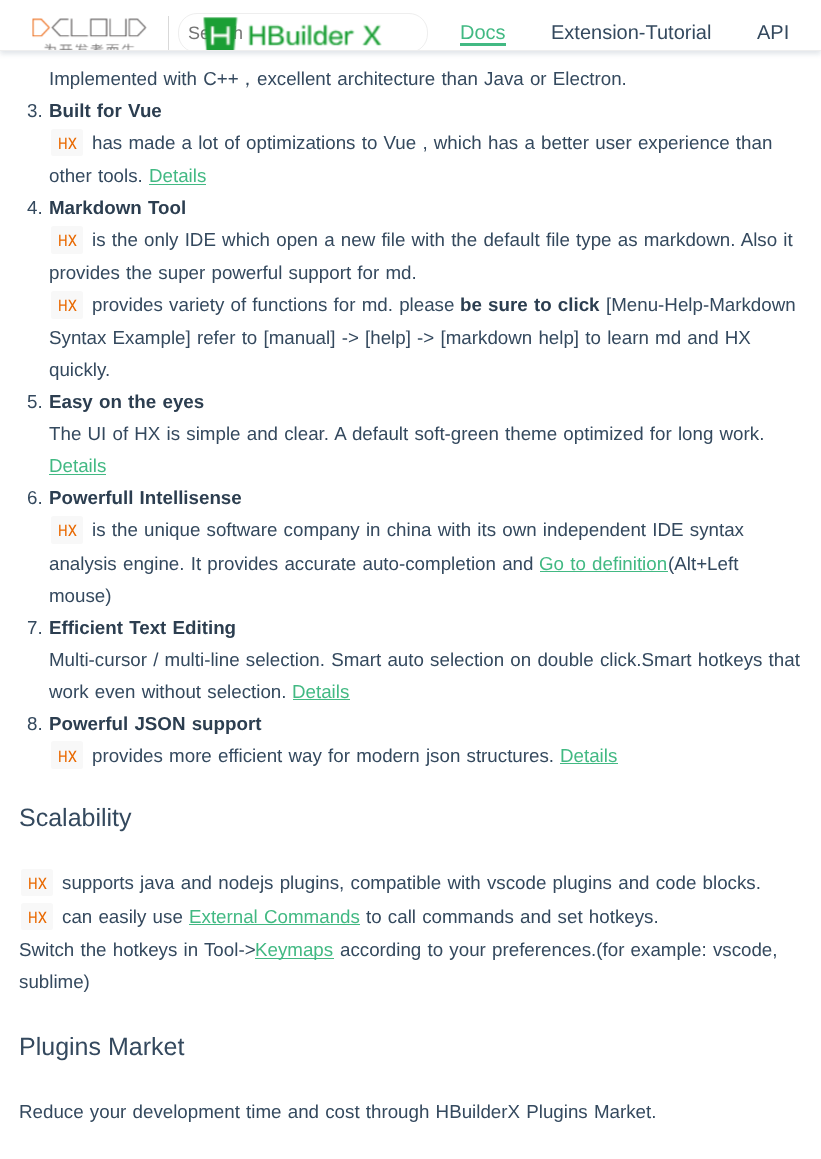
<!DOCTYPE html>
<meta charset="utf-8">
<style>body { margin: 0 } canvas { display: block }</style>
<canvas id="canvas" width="821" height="1159"></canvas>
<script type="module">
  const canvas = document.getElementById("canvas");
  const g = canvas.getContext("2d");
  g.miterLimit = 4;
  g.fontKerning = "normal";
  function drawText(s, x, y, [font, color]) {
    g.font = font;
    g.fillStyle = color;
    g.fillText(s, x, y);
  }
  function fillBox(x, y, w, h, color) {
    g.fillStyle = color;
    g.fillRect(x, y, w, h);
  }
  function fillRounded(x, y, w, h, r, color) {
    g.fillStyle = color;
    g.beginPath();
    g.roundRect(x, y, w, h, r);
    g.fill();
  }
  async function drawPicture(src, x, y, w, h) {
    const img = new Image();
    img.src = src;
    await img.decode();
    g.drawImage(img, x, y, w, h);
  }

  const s1 = ["18px Liberation Sans", "#757575"];
  const s2 = ["20px Liberation Sans", "#42B983"];
  const s3 = ["20px Liberation Sans", "#34495E"];
  const s4 = ["18.75px Liberation Sans", "#34495E"];
  const s5 = ["500 18.75px WenQuanYi Zen Hei", "#34495E"];
  const s6 = ["bold 18.75px Liberation Sans", "#2C3E50"];
  const s7 = ["16px Roboto Mono", "#E96900"];
  const s8 = ["18.75px Liberation Sans", "#42B983"];
  const s9 = ["25px Liberation Sans", "#34495E"];

  fillBox(0, 0, 821, 1159, "#FFFFFF");
  g.fillStyle = "#E1E5E9";
  g.filter = "blur(2.5px)";
  g.beginPath();
  g.rect(0, 3, 821, 51);
  g.fill();
  g.filter = "none";
  fillBox(0, 0, 821, 50, "#FFFFFF");
  fillBox(0, 50, 821, 1, "#EEEEEE");
  await drawPicture("pic1.png", 32, 18, 115, 32);
  fillBox(168, 16, 1, 34, "#D9D9D9");
  g.save();
  g.beginPath();
  g.rect(0, 0, 821, 50);
  g.clip();
  g.beginPath();
  g.roundRect(178.5, 13.5, 249, 39, 18.5);
  g.strokeStyle = "#EEEEEE";
  g.stroke();
  g.restore();
  drawText("Se", 188, 39, s1);
  drawText("h", 233, 39, s1);
  await drawPicture("pic2.png", 203, 17, 179, 33);
  drawText("Docs", 460, 39, s2);
  fillBox(460, 43, 46, 3, "#42B983");
  drawText("Extension-Tutorial", 551, 39, s3);
  drawText("API", 757, 39, s3);
  g.wordSpacing = "1px";
  drawText("Implemented with C++", 49, 85, s4);
  g.wordSpacing = "0px";
  drawText("，", 238, 85, s5);
  g.wordSpacing = "1px";
  drawText("excellent architecture than Java or Electron.", 257, 85, s4);
  g.wordSpacing = "0px";
  drawText("3.", 27, 117, s4);
  g.wordSpacing = "1px";
  drawText("Built for Vue", 49, 117, s6);
  fillRounded(51, 129, 32, 27, 2.5, "#F8F8F8");
  g.wordSpacing = "0px";
  drawText("HX", 58, 149, s7);
  g.wordSpacing = "1px";
  drawText("has made a lot of optimizations to Vue , which has a better user experience than", 92, 149, s4);
  drawText("other tools.", 49, 182, s4);
  g.wordSpacing = "0px";
  drawText("Details", 149, 182, s8);
  fillBox(149, 184, 57, 1, "#42B983");
  drawText("4.", 27, 214, s4);
  g.wordSpacing = "1px";
  drawText("Markdown Tool", 49, 214, s6);
  fillRounded(51, 226, 32, 28, 2.5, "#F8F8F8");
  g.wordSpacing = "0px";
  drawText("HX", 58, 246, s7);
  g.wordSpacing = "1px";
  drawText("is the only IDE which open a new file with the default file type as markdown. Also it", 92, 246, s4);
  drawText("provides the super powerful support for md.", 49, 279, s4);
  fillRounded(51, 291, 32, 28, 2.5, "#F8F8F8");
  g.wordSpacing = "0px";
  drawText("HX", 58, 311, s7);
  g.wordSpacing = "1px";
  drawText("provides variety of functions for md. please", 92, 311, s4);
  drawText("be sure to click", 460, 311, s6);
  g.wordSpacing = "0px";
  drawText("[Menu-Help-Markdown", 606, 311, s4);
  g.wordSpacing = "1px";
  drawText("Syntax Example] refer to [manual] -> [help] -> [markdown help] to learn md and HX", 49, 344, s4);
  g.wordSpacing = "0px";
  drawText("quickly.", 49, 376, s4);
  drawText("5.", 27, 408, s4);
  g.wordSpacing = "1px";
  drawText("Easy on the eyes", 49, 408, s6);
  drawText("The UI of HX is simple and clear. A default soft-green theme optimized for long work.", 49, 440, s4);
  g.wordSpacing = "0px";
  drawText("Details", 49, 472, s8);
  fillBox(49, 474, 57, 1, "#42B983");
  drawText("6.", 27, 504, s4);
  g.wordSpacing = "1px";
  drawText("Powerfull Intellisense", 49, 504, s6);
  fillRounded(51, 516, 32, 28, 2.5, "#F8F8F8");
  g.wordSpacing = "0px";
  drawText("HX", 58, 536, s7);
  g.wordSpacing = "1px";
  drawText("is the unique software company in china with its own independent IDE syntax", 92, 536, s4);
  drawText("analysis engine. It provides accurate auto-completion and", 49, 570, s4);
  drawText("Go to definition", 539, 570, s8);
  fillBox(540, 571, 128, 1, "#42B983");
  g.wordSpacing = "0px";
  drawText("(Alt+Left", 668, 570, s4);
  drawText("mouse)", 49, 602, s4);
  drawText("7.", 27, 634, s4);
  g.wordSpacing = "1px";
  drawText("Efficient Text Editing", 49, 634, s6);
  drawText("Multi-cursor / multi-line selection. Smart auto selection on double click.Smart hotkeys that", 49, 666, s4);
  drawText("work even without selection.", 49, 698, s4);
  g.wordSpacing = "0px";
  drawText("Details", 292, 698, s8);
  fillBox(293, 699, 57, 1, "#42B983");
  drawText("8.", 27, 730, s4);
  g.wordSpacing = "1px";
  drawText("Powerful JSON support", 49, 730, s6);
  fillRounded(51, 741, 32, 28, 2.5, "#F8F8F8");
  g.wordSpacing = "0px";
  drawText("HX", 58, 762, s7);
  g.wordSpacing = "1px";
  drawText("provides more efficient way for modern json structures.", 92, 762, s4);
  g.wordSpacing = "0px";
  drawText("Details", 560, 762, s8);
  fillBox(560, 763, 58, 1, "#42B983");
  drawText("Scalability", 19, 826, s9);
  fillRounded(21, 869, 32, 27, 2.5, "#F8F8F8");
  drawText("HX", 28, 889, s7);
  g.wordSpacing = "1px";
  drawText("supports java and nodejs plugins, compatible with vscode plugins and code blocks.", 62, 889, s4);
  fillRounded(21, 903, 32, 27, 2.5, "#F8F8F8");
  g.wordSpacing = "0px";
  drawText("HX", 28, 923, s7);
  g.wordSpacing = "1px";
  drawText("can easily use", 62, 923, s4);
  drawText("External Commands", 189, 923, s8);
  fillBox(189, 924, 171, 1, "#42B983");
  drawText("to call commands and set hotkeys.", 366, 923, s4);
  drawText("Switch the hotkeys in Tool->", 19, 956, s4);
  fillBox(255, 958, 79, 1, "#42B983");
  g.wordSpacing = "0px";
  drawText("Keymaps", 255, 956, s8);
  g.wordSpacing = "1px";
  drawText("according to your preferences.(for example: vscode,", 340, 956, s4);
  g.wordSpacing = "0px";
  drawText("sublime)", 19, 988, s4);
  drawText("Plugins Market", 19, 1055, s9);
  g.wordSpacing = "1px";
  drawText("Reduce your development time and cost through HBuilderX Plugins Market.", 19, 1118, s4);
</script>
